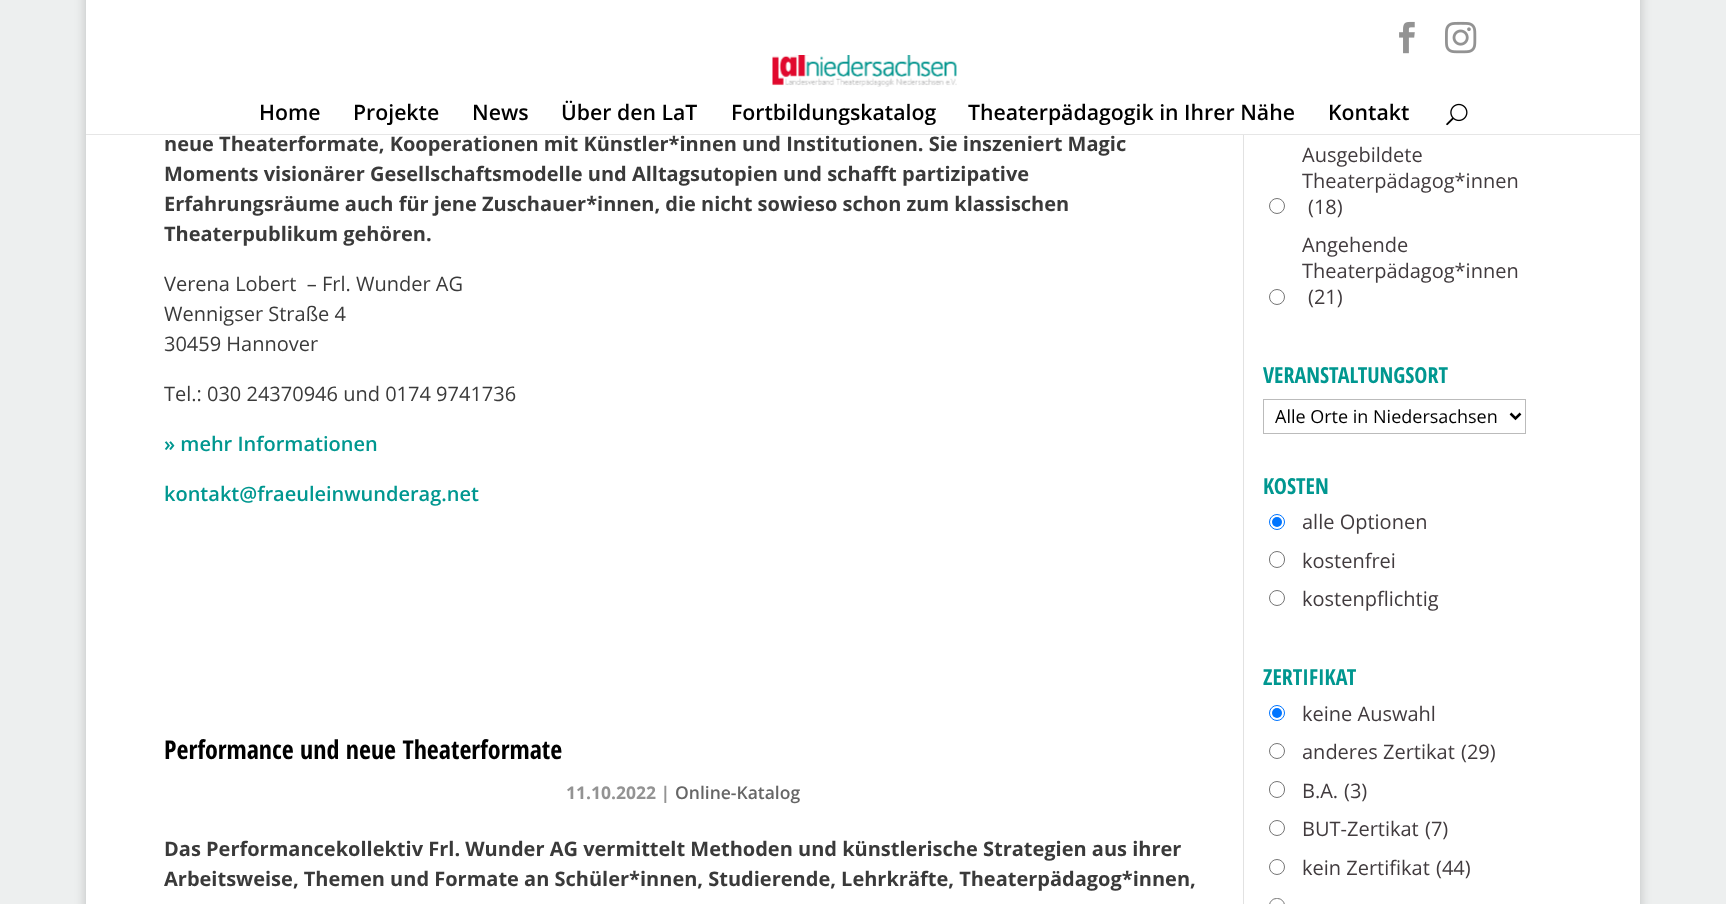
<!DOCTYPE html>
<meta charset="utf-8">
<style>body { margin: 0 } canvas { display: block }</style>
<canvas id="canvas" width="1726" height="904"></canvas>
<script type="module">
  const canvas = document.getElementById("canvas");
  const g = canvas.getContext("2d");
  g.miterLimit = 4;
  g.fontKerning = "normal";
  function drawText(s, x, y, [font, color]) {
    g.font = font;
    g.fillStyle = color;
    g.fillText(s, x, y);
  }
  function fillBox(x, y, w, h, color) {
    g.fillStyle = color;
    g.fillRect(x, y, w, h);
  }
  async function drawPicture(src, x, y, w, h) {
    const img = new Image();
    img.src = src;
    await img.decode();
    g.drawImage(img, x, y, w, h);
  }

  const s1 = ["600 21.25px Open Sans", "#000000"];
  const s2 = ["bold 20px Open Sans", "#3A3A3A"];
  const s3 = ["20px Open Sans", "#3A3A3A"];
  const s4 = ["600 20px Open Sans", "#009790"];
  const s5 = ["bold 26px Open Sans Condensed", "#000000"];
  const s6 = ["bold 17.5px Open Sans", "#939393"];
  const s7 = ["600 17.5px Open Sans", "#666666"];
  const s8 = ["20px Open Sans", "#413B3E"];
  const s9 = ["bold 22px Open Sans Condensed", "#009790"];
  const s10 = ["18px Open Sans", "#000000"];

  fillBox(0, 0, 1726, 904, "#EDEFEF");
  g.fillStyle = "rgba(0, 0, 0, 0.2)";
  g.filter = "blur(6px)";
  g.beginPath();
  g.rect(86, -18, 1554, 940);
  g.fill();
  g.filter = "none";
  fillBox(86, 135, 1554, 769, "#FFFFFF");
  fillBox(86, 0, 1554, 134, "#FFFFFF");
  await drawPicture("pic1.png", 1399, 21, 16, 33);
  await drawPicture("pic2.png", 1445, 21, 32, 33);
  fillBox(86, 134, 1554, 1, "#E6E6E6");
  await drawPicture("pic3.png", 772, 55, 185, 32);
  drawText("Home", 259, 120, s1);
  drawText("Projekte", 353, 120, s1);
  drawText("News", 472, 120, s1);
  drawText("Über den LaT", 561, 120, s1);
  drawText("Fortbildungskatalog", 731, 120, s1);
  drawText("Theaterpädagogik in Ihrer Nähe", 968, 120, s1);
  drawText("Kontakt", 1328, 120, s1);
  await drawPicture("pic4.png", 1446, 103, 22, 23);
  drawText("neue Theaterformate, Kooperationen mit Künstler*innen und Institutionen. Sie inszeniert Magic", 164, 151, s2);
  drawText("Moments visionärer Gesellschaftsmodelle und Alltagsutopien und schafft partizipative", 164, 181, s2);
  drawText("Erfahrungsräume auch für jene Zuschauer*innen, die nicht sowieso schon zum klassischen", 164, 211, s2);
  drawText("Theaterpublikum gehören.", 164, 241, s2);
  drawText("Verena Lobert  – Frl. Wunder AG", 164, 291, s3);
  drawText("Wennigser Straße 4", 164, 321, s3);
  drawText("30459 Hannover", 164, 351, s3);
  drawText("Tel.: 030 24370946 und 0174 9741736", 164, 401, s3);
  drawText("» mehr Informationen", 164, 451, s4);
  drawText("kontakt@fraeuleinwunderag.net", 164, 501, s4);
  drawText("Performance und neue Theaterformate", 164, 759, s5);
  drawText("11.10.2022 |", 566, 799, s6);
  drawText("Online-Katalog", 675, 799, s7);
  drawText("Das Performancekollektiv Frl. Wunder AG vermittelt Methoden und künstlerische Strategien aus ihrer", 164, 856, s2);
  drawText("Arbeitsweise, Themen und Formate an Schüler*innen, Studierende, Lehrkräfte, Theaterpädagog*innen,", 164, 886, s2);
  g.beginPath();
  g.arc(1277, 206, 7.5, 0, Math.PI * 2);
  g.strokeStyle = "#767676";
  g.stroke();
  drawText("Ausgebildete", 1302, 162, s8);
  drawText("Theaterpädagog*innen", 1302, 188, s8);
  drawText("(18)", 1308, 214, s8);
  g.beginPath();
  g.arc(1277, 297, 7.5, 0, Math.PI * 2);
  g.stroke();
  drawText("Angehende", 1302, 252, s8);
  drawText("Theaterpädagog*innen", 1302, 278, s8);
  drawText("(21)", 1308, 304, s8);
  drawText("VERANSTALTUNGSORT", 1263, 383, s9);
  g.strokeStyle = "#BBBBBB";
  g.strokeRect(1263.5, 399.5, 262, 34);
  g.beginPath();
  g.moveTo(1510.5, 413.5);
  g.lineTo(1515.5, 418.5);
  g.lineTo(1520.5, 413.5);
  g.strokeStyle = "#000000";
  g.lineWidth = 2.5;
  g.stroke();
  drawText("Alle Orte in Niedersachsen", 1275, 423, s10);
  drawText("KOSTEN", 1263, 494, s9);
  g.beginPath();
  g.arc(1277, 522, 7.5, 0, Math.PI * 2);
  g.strokeStyle = "#0075FF";
  g.lineWidth = 1;
  g.stroke();
  g.fillStyle = "#0075FF";
  g.beginPath();
  g.arc(1277, 522, 5, 0, Math.PI * 2);
  g.fill();
  drawText("alle Optionen", 1302, 529, s8);
  g.beginPath();
  g.roundRect(1269.5, 551.5, 15, 16, 7.5);
  g.strokeStyle = "#767676";
  g.stroke();
  drawText("kostenfrei", 1302, 568, s8);
  g.beginPath();
  g.arc(1277, 598, 7.5, 0, Math.PI * 2);
  g.stroke();
  drawText("kostenpflichtig", 1302, 606, s8);
  drawText("ZERTIFIKAT", 1263, 685, s9);
  g.beginPath();
  g.arc(1277, 713, 7.5, 0, Math.PI * 2);
  g.strokeStyle = "#0075FF";
  g.stroke();
  g.fillStyle = "#0075FF";
  g.beginPath();
  g.arc(1277, 713, 5, 0, Math.PI * 2);
  g.fill();
  drawText("keine Auswahl", 1302, 721, s8);
  g.beginPath();
  g.arc(1277, 751, 7.5, 0, Math.PI * 2);
  g.strokeStyle = "#767676";
  g.stroke();
  drawText("anderes Zertikat", 1302, 759, s8);
  drawText("(29)", 1461, 759, s8);
  g.beginPath();
  g.roundRect(1269.5, 781.5, 15, 16, 7.5);
  g.stroke();
  drawText("B.A.", 1302, 798, s8);
  drawText("(3)", 1344, 798, s8);
  g.beginPath();
  g.arc(1277, 828, 7.5, 0, Math.PI * 2);
  g.stroke();
  drawText("BUT-Zertikat", 1302, 836, s8);
  drawText("(7)", 1425, 836, s8);
  g.beginPath();
  g.arc(1277, 867, 7.5, 0, Math.PI * 2);
  g.stroke();
  drawText("kein Zertifikat", 1302, 875, s8);
  drawText("(44)", 1436, 875, s8);
  g.beginPath();
  g.roundRect(1269.5, 898.5, 15, 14, 7.5);
  g.stroke();
  fillBox(1243, 135, 1, 769, "#E2E2E2");
</script>
